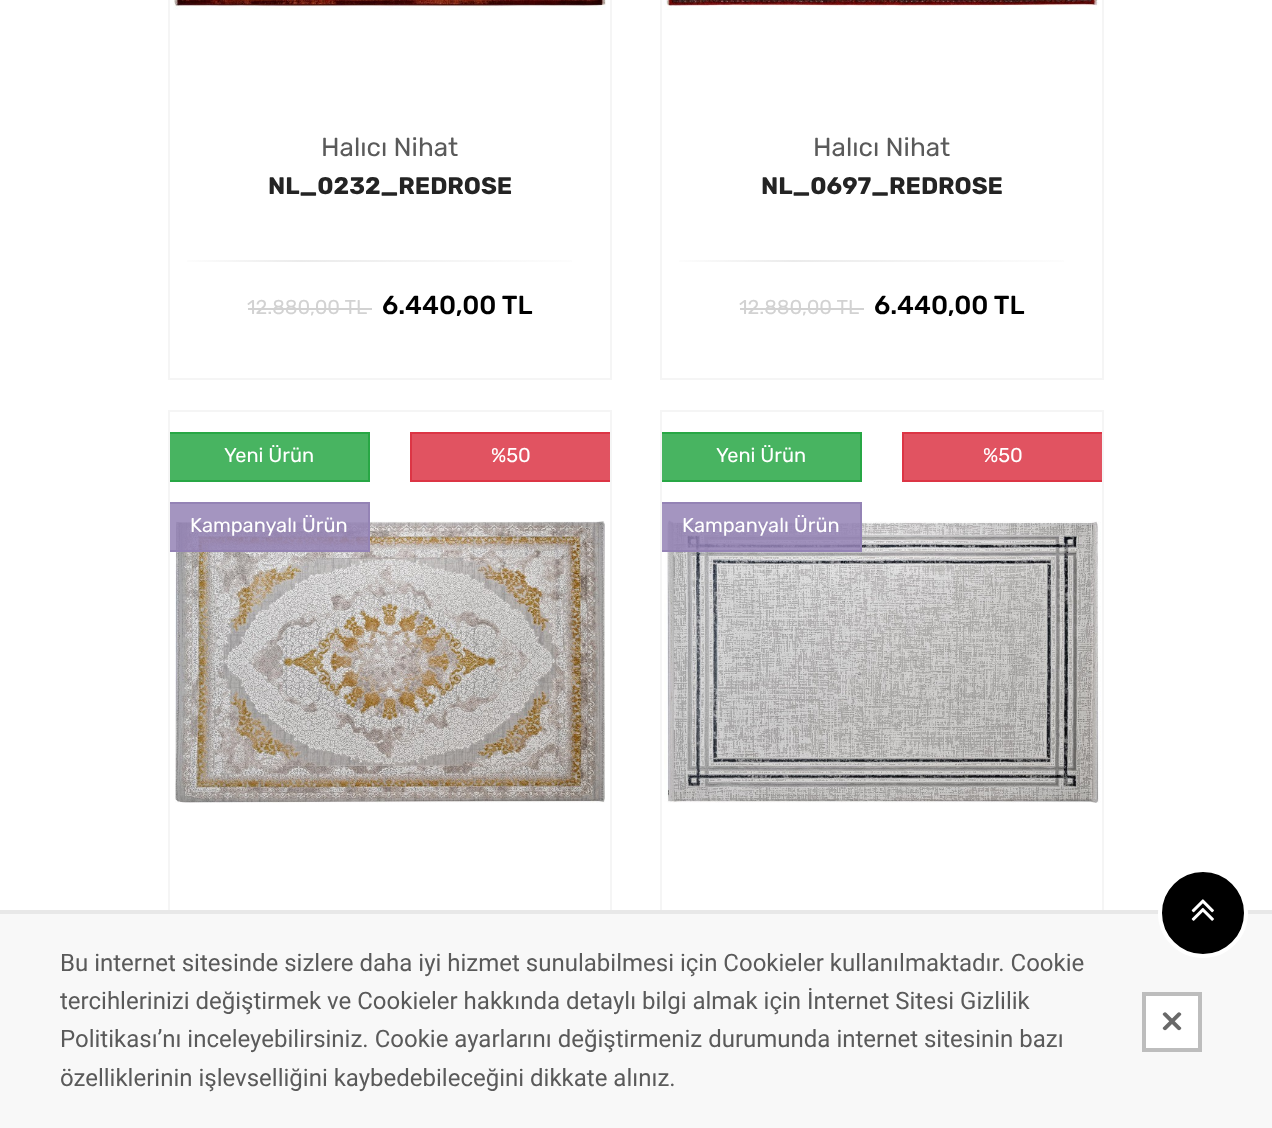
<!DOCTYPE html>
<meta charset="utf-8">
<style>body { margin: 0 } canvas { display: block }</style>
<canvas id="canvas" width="1272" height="1128"></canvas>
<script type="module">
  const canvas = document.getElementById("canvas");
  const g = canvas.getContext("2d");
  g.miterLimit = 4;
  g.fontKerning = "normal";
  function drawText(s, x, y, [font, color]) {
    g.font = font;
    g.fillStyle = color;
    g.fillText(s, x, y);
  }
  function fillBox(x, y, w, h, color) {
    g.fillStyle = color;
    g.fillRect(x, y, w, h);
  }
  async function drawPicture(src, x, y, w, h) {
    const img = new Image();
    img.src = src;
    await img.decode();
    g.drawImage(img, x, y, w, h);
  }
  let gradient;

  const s1 = ["26px Rubik", "#5A5A5A"];
  const s2 = ["bold 24px Rubik", "#242424"];
  const s3 = ["20px Rubik", "#D2D2D2"];
  const s4 = ["500 26px Rubik", "#000000"];
  const s5 = ["20px Rubik", "#FFFFFF"];
  const s6 = ["24px Roboto", "#5A5A5A"];

  fillBox(0, 0, 1272, 1128, "#FFFFFF");
  g.strokeStyle = "#F5F5F5";
  g.lineWidth = 2;
  g.strokeRect(169, -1, 442, 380);
  await drawPicture("pic1.png", 173, 0, 433, 10);
  drawText("Halıcı Nihat", 321, 156, s1);
  drawText("NL_0232_REDROSE", 268, 194, s2);
  gradient = g.createLinearGradient(170, 261, 610, 261);
  gradient.addColorStop(0, "#FFFFFF");
  gradient.addColorStop(0.3, "#EBEBEB");
  gradient.addColorStop(1, "#FFFFFF");
  g.fillStyle = gradient;
  g.fillRect(187, 260, 385, 2);
  drawText("12.880,00 TL", 247, 314, s3);
  fillBox(248, 308, 124, 2, "#D2D2D2");
  drawText("6.440,00 TL", 382, 314, s4);
  g.strokeRect(661, -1, 442, 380);
  await drawPicture("pic2.png", 662, 0, 437, 10);
  drawText("Halıcı Nihat", 813, 156, s1);
  drawText("NL_0697_REDROSE", 761, 194, s2);
  gradient = g.createLinearGradient(662, 261, 1102, 261);
  gradient.addColorStop(0, "#FFFFFF");
  gradient.addColorStop(0.3, "#EBEBEB");
  gradient.addColorStop(1, "#FFFFFF");
  g.fillStyle = gradient;
  g.fillRect(679, 260, 385, 2);
  drawText("12.880,00 TL", 739, 314, s3);
  fillBox(740, 308, 124, 2, "#D2D2D2");
  drawText("6.440,00 TL", 874, 314, s4);
  g.strokeRect(169, 411, 442, 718);
  fillBox(170, 432, 200, 2, "#28A745");
  fillBox(368, 432, 2, 50, "#28A745");
  fillBox(170, 480, 200, 2, "#28A745");
  fillBox(170, 434, 198, 46, "#48B461");
  drawText("Yeni Ürün", 224, 462, s5);
  fillBox(410, 432, 200, 2, "#DC3545");
  fillBox(410, 480, 200, 2, "#DC3545");
  fillBox(410, 432, 2, 50, "#DC3545");
  fillBox(412, 434, 198, 46, "#E15361");
  drawText("%50", 491, 462, s5);
  fillBox(170, 502, 200, 2, "#9483B5");
  await drawPicture("pic3.png", 175, 521, 430, 282);
  fillBox(368, 502, 2, 50, "#9483B5");
  fillBox(170, 550, 200, 2, "#9483B5");
  fillBox(170, 504, 198, 46, "rgba(148, 131, 181, 0.85)");
  drawText("Kampanyalı Ürün", 190, 532, s5);
  g.strokeRect(661, 411, 442, 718);
  fillBox(662, 432, 200, 2, "#28A745");
  fillBox(860, 432, 2, 50, "#28A745");
  fillBox(662, 480, 200, 2, "#28A745");
  fillBox(662, 434, 198, 46, "#48B461");
  drawText("Yeni Ürün", 716, 462, s5);
  fillBox(902, 432, 200, 2, "#DC3545");
  fillBox(902, 480, 200, 2, "#DC3545");
  fillBox(902, 432, 2, 50, "#DC3545");
  fillBox(904, 434, 198, 46, "#E15361");
  drawText("%50", 983, 462, s5);
  fillBox(662, 502, 200, 2, "#9483B5");
  await drawPicture("pic4.png", 664, 520, 437, 283);
  fillBox(860, 502, 2, 50, "#9483B5");
  fillBox(662, 550, 200, 2, "#9483B5");
  fillBox(662, 504, 198, 46, "rgba(148, 131, 181, 0.85)");
  drawText("Kampanyalı Ürün", 682, 532, s5);
  fillBox(0, 914, 1272, 214, "#F8F8F8");
  fillBox(0, 910, 1272, 4, "#E8E8E8");
  g.fillStyle = "#000000";
  g.beginPath();
  g.arc(1203, 913, 43, 0, Math.PI * 2);
  g.fill();
  g.strokeStyle = "#FFFFFF";
  g.lineWidth = 4;
  g.stroke();
  await drawPicture("pic5.png", 1191, 899, 23, 22);
  drawText("Bu internet sitesinde sizlere daha iyi hizmet sunulabilmesi için Cookieler kullanılmaktadır. Cookie", 60, 971, s6);
  drawText("tercihlerinizi değiştirmek ve Cookieler hakkında detaylı bilgi almak için İnternet Sitesi Gizlilik", 60, 1009, s6);
  g.fillStyle = "#FFFFFF";
  g.beginPath();
  g.rect(1144, 994, 56, 56);
  g.fill();
  g.strokeStyle = "#BDBDBD";
  g.stroke();
  g.fillStyle = "#696969";
  g.beginPath();
  g.moveTo(1166.5, 1013);
  g.lineTo(1180.5, 1027);
  g.bezierCurveTo(1181.5, 1027.5, 1181.5, 1029, 1180.5, 1029.5);
  g.bezierCurveTo(1179.5, 1030.5, 1178.5, 1030.5, 1177.5, 1029.5);
  g.lineTo(1163.5, 1015.5);
  g.bezierCurveTo(1162.5, 1015, 1162.5, 1013.5, 1163.5, 1013);
  g.bezierCurveTo(1164.5, 1012, 1165.5, 1012, 1166.5, 1013);
  g.closePath();
  g.fill();
  g.beginPath();
  g.moveTo(1163.5, 1027);
  g.lineTo(1177.5, 1013);
  g.bezierCurveTo(1178.5, 1012, 1179.5, 1012, 1180.5, 1013);
  g.bezierCurveTo(1181.5, 1013.5, 1181.5, 1015, 1180.5, 1015.5);
  g.lineTo(1166.5, 1029.5);
  g.bezierCurveTo(1165.5, 1030.5, 1164.5, 1030.5, 1163.5, 1029.5);
  g.bezierCurveTo(1162.5, 1029, 1162.5, 1027.5, 1163.5, 1027);
  g.closePath();
  g.fill();
  drawText("Politikası’nı inceleyebilirsiniz. Cookie ayarlarını değiştirmeniz durumunda internet sitesinin bazı", 60, 1047, s6);
  drawText("özelliklerinin işlevselliğini kaybedebileceğini dikkate alınız.", 60, 1086, s6);
</script>
